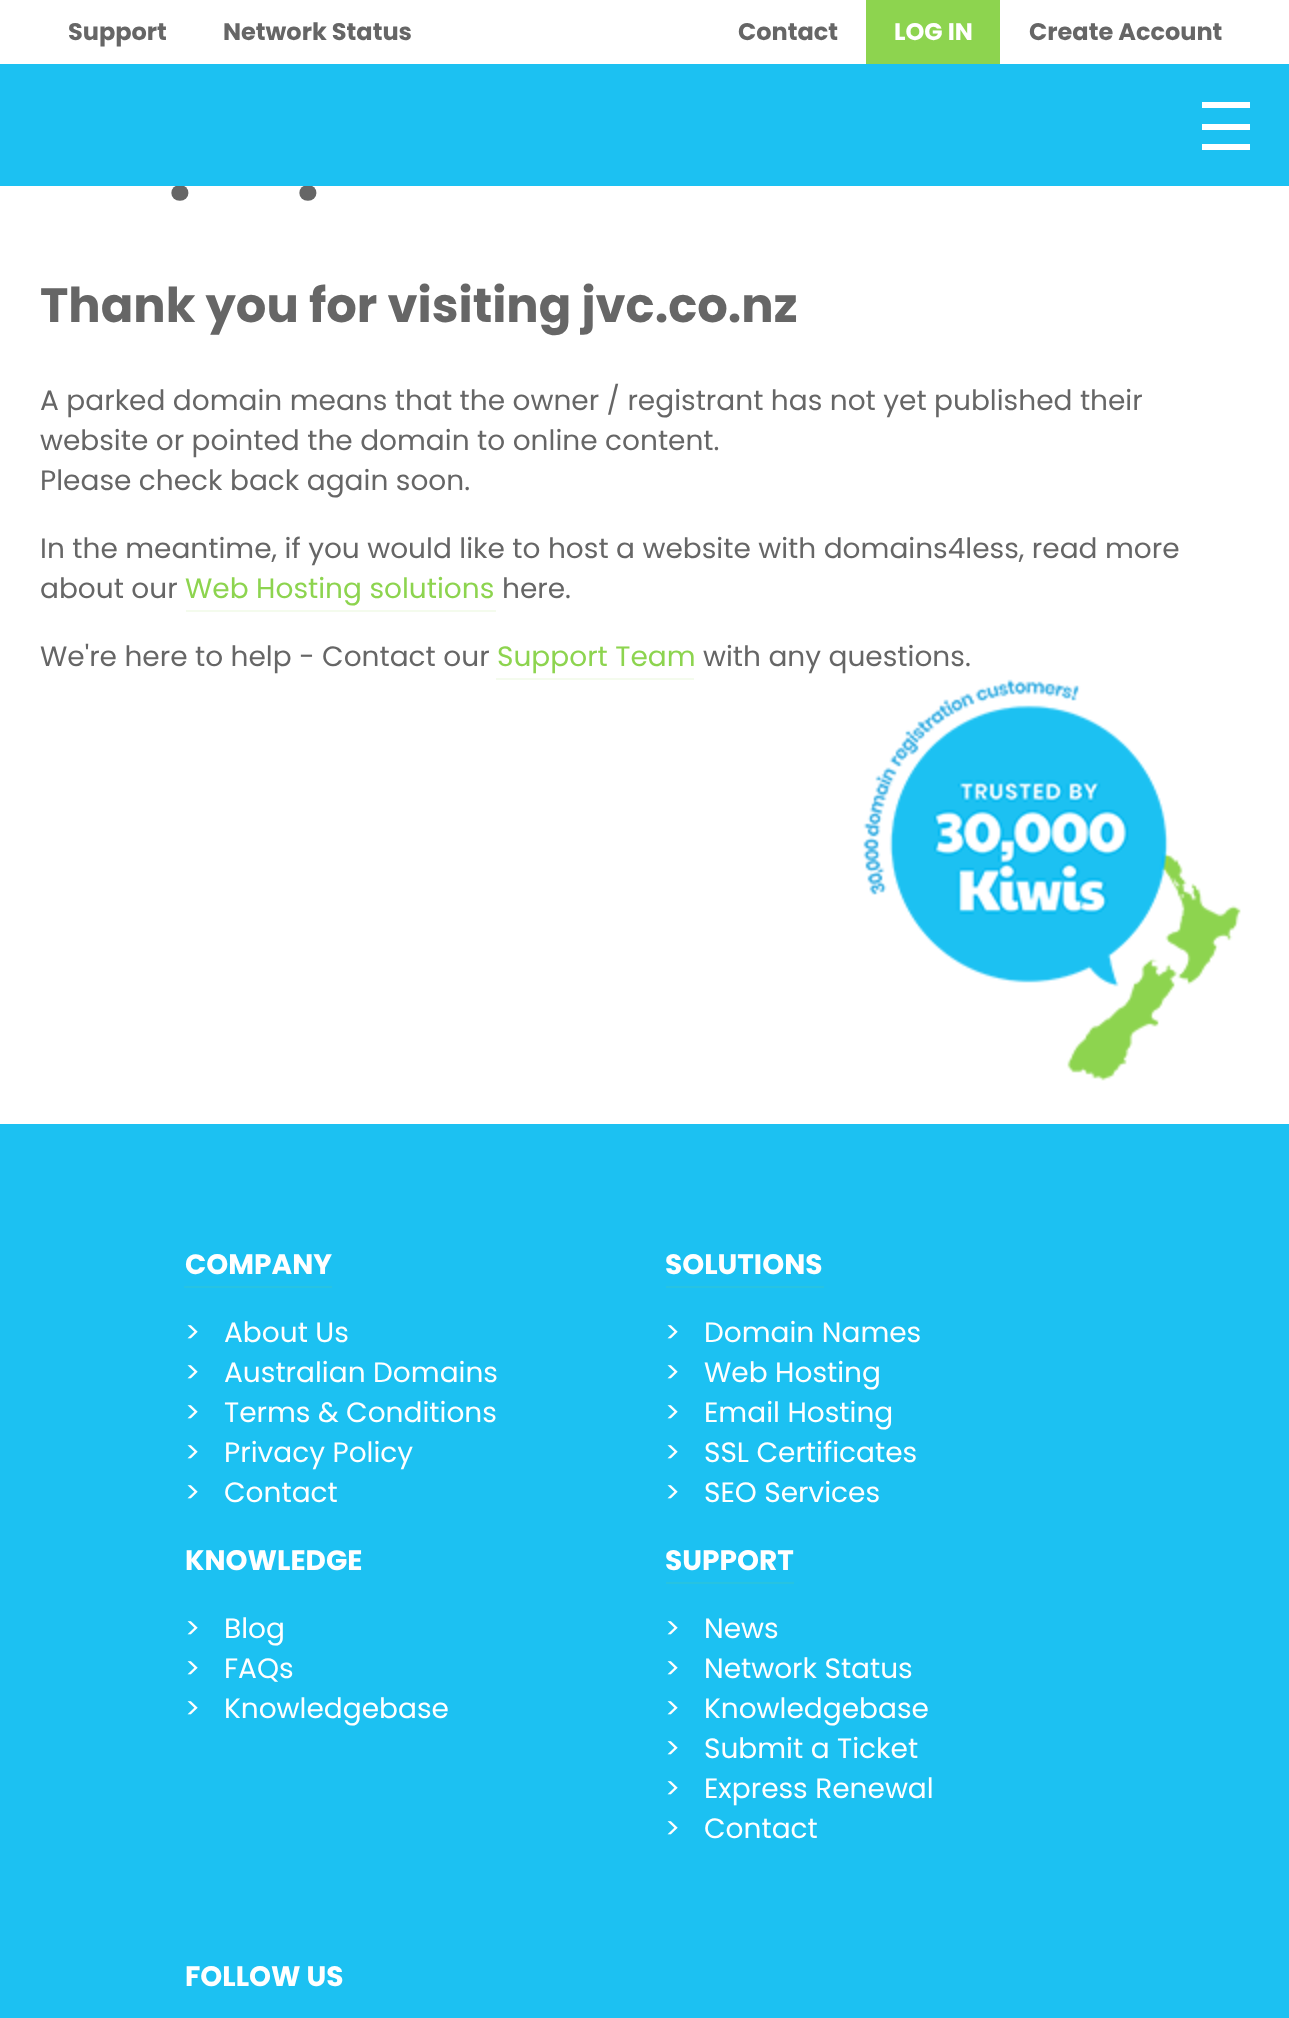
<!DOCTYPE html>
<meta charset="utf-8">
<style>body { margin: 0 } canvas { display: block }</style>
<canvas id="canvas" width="1289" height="2018"></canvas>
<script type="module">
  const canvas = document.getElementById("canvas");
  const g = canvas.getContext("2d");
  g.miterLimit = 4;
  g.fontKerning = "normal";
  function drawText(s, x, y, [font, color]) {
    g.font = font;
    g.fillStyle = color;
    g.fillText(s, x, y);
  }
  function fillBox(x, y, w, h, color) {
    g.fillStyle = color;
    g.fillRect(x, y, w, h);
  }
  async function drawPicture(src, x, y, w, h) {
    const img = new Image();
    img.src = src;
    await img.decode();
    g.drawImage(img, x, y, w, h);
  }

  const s1 = ["bold 24px Poppins", "#666666"];
  const s2 = ["bold 24px Poppins", "#FFFFFF"];
  const s3 = ["bold 84px Poppins", "#666666"];
  const s4 = ["bold 48px Poppins", "#666666"];
  const s5 = ["28px Poppins", "#666666"];
  const s6 = ["28px Poppins", "#8DD44F"];
  const s7 = ["bold 28px Poppins", "#FFFFFF"];
  const s8 = ["28px Poppins", "#FFFFFF"];

  fillBox(0, 0, 1289, 2018, "#FFFFFF");
  drawText("Support", 68, 40, s1);
  drawText("Network Status", 223, 40, s1);
  drawText("Contact", 738, 40, s1);
  fillBox(866, 0, 134, 64, "#8DD44F");
  drawText("LOG IN", 894, 40, s2);
  drawText("Create Account", 1029, 40, s1);
  drawText(".", 168, 200, s3);
  drawText(".", 296, 200, s3);
  fillBox(0, 64, 1289, 122, "#1CC1F2");
  fillBox(1202, 102, 48, 6, "#FFFFFF");
  fillBox(1202, 124, 48, 6, "#FFFFFF");
  fillBox(1202, 144, 48, 6, "#FFFFFF");
  drawText("Thank you for visiting jvc.co.nz", 40, 322, s4);
  drawText("A parked domain means that the owner / registrant has not yet published their", 40, 410, s5);
  drawText("website or pointed the domain to online content.", 40, 450, s5);
  drawText("Please check back again soon.", 40, 490, s5);
  drawText("In the meantime, if you would like to host a website with domains4less, read more", 40, 558, s5);
  drawText("about our", 40, 598, s5);
  drawText("Web Hosting solutions", 185, 598, s6);
  fillBox(186, 610, 310, 2, "#F4FBED");
  drawText("here.", 502, 598, s5);
  drawText("We're here to help - Contact our", 40, 666, s5);
  drawText("Support Team", 497, 666, s6);
  fillBox(496, 678, 198, 2, "#F4FBED");
  drawText("with any questions.", 703, 666, s5);
  await drawPicture("pic1.png", 863, 679, 378, 402);
  fillBox(0, 1124, 1289, 894, "#1CC1F2");
  drawText("COMPANY", 185, 1274, s7);
  fillBox(184, 1286, 148, 2, "#27C3E2");
  drawText(">", 185, 1342, s8);
  drawText("About Us", 224, 1342, s8);
  drawText(">", 185, 1382, s8);
  drawText("Australian Domains", 224, 1382, s8);
  drawText(">", 185, 1422, s8);
  drawText("Terms & Conditions", 224, 1422, s8);
  drawText(">", 185, 1462, s8);
  drawText("Privacy Policy", 224, 1462, s8);
  drawText(">", 185, 1502, s8);
  drawText("Contact", 224, 1502, s8);
  drawText("SOLUTIONS", 665, 1274, s7);
  fillBox(666, 1286, 158, 2, "#27C3E2");
  drawText(">", 665, 1342, s8);
  drawText("Domain Names", 704, 1342, s8);
  drawText(">", 665, 1382, s8);
  drawText("Web Hosting", 704, 1382, s8);
  drawText(">", 665, 1422, s8);
  drawText("Email Hosting", 704, 1422, s8);
  drawText(">", 665, 1462, s8);
  drawText("SSL Certificates", 704, 1462, s8);
  drawText(">", 665, 1502, s8);
  drawText("SEO Services", 704, 1502, s8);
  drawText("KNOWLEDGE", 185, 1570, s7);
  drawText(">", 185, 1638, s8);
  drawText("Blog", 224, 1638, s8);
  drawText(">", 185, 1678, s8);
  drawText("FAQs", 224, 1678, s8);
  drawText(">", 185, 1718, s8);
  drawText("Knowledgebase", 224, 1718, s8);
  drawText("SUPPORT", 665, 1570, s7);
  fillBox(666, 1582, 128, 2, "#27C3E2");
  drawText(">", 665, 1638, s8);
  drawText("News", 704, 1638, s8);
  drawText(">", 665, 1678, s8);
  drawText("Network Status", 704, 1678, s8);
  drawText(">", 665, 1718, s8);
  drawText("Knowledgebase", 704, 1718, s8);
  drawText(">", 665, 1758, s8);
  drawText("Submit a Ticket", 704, 1758, s8);
  drawText(">", 665, 1798, s8);
  drawText("Express Renewal", 704, 1798, s8);
  drawText(">", 665, 1838, s8);
  drawText("Contact", 704, 1838, s8);
  drawText("FOLLOW US", 185, 1986, s7);
</script>
